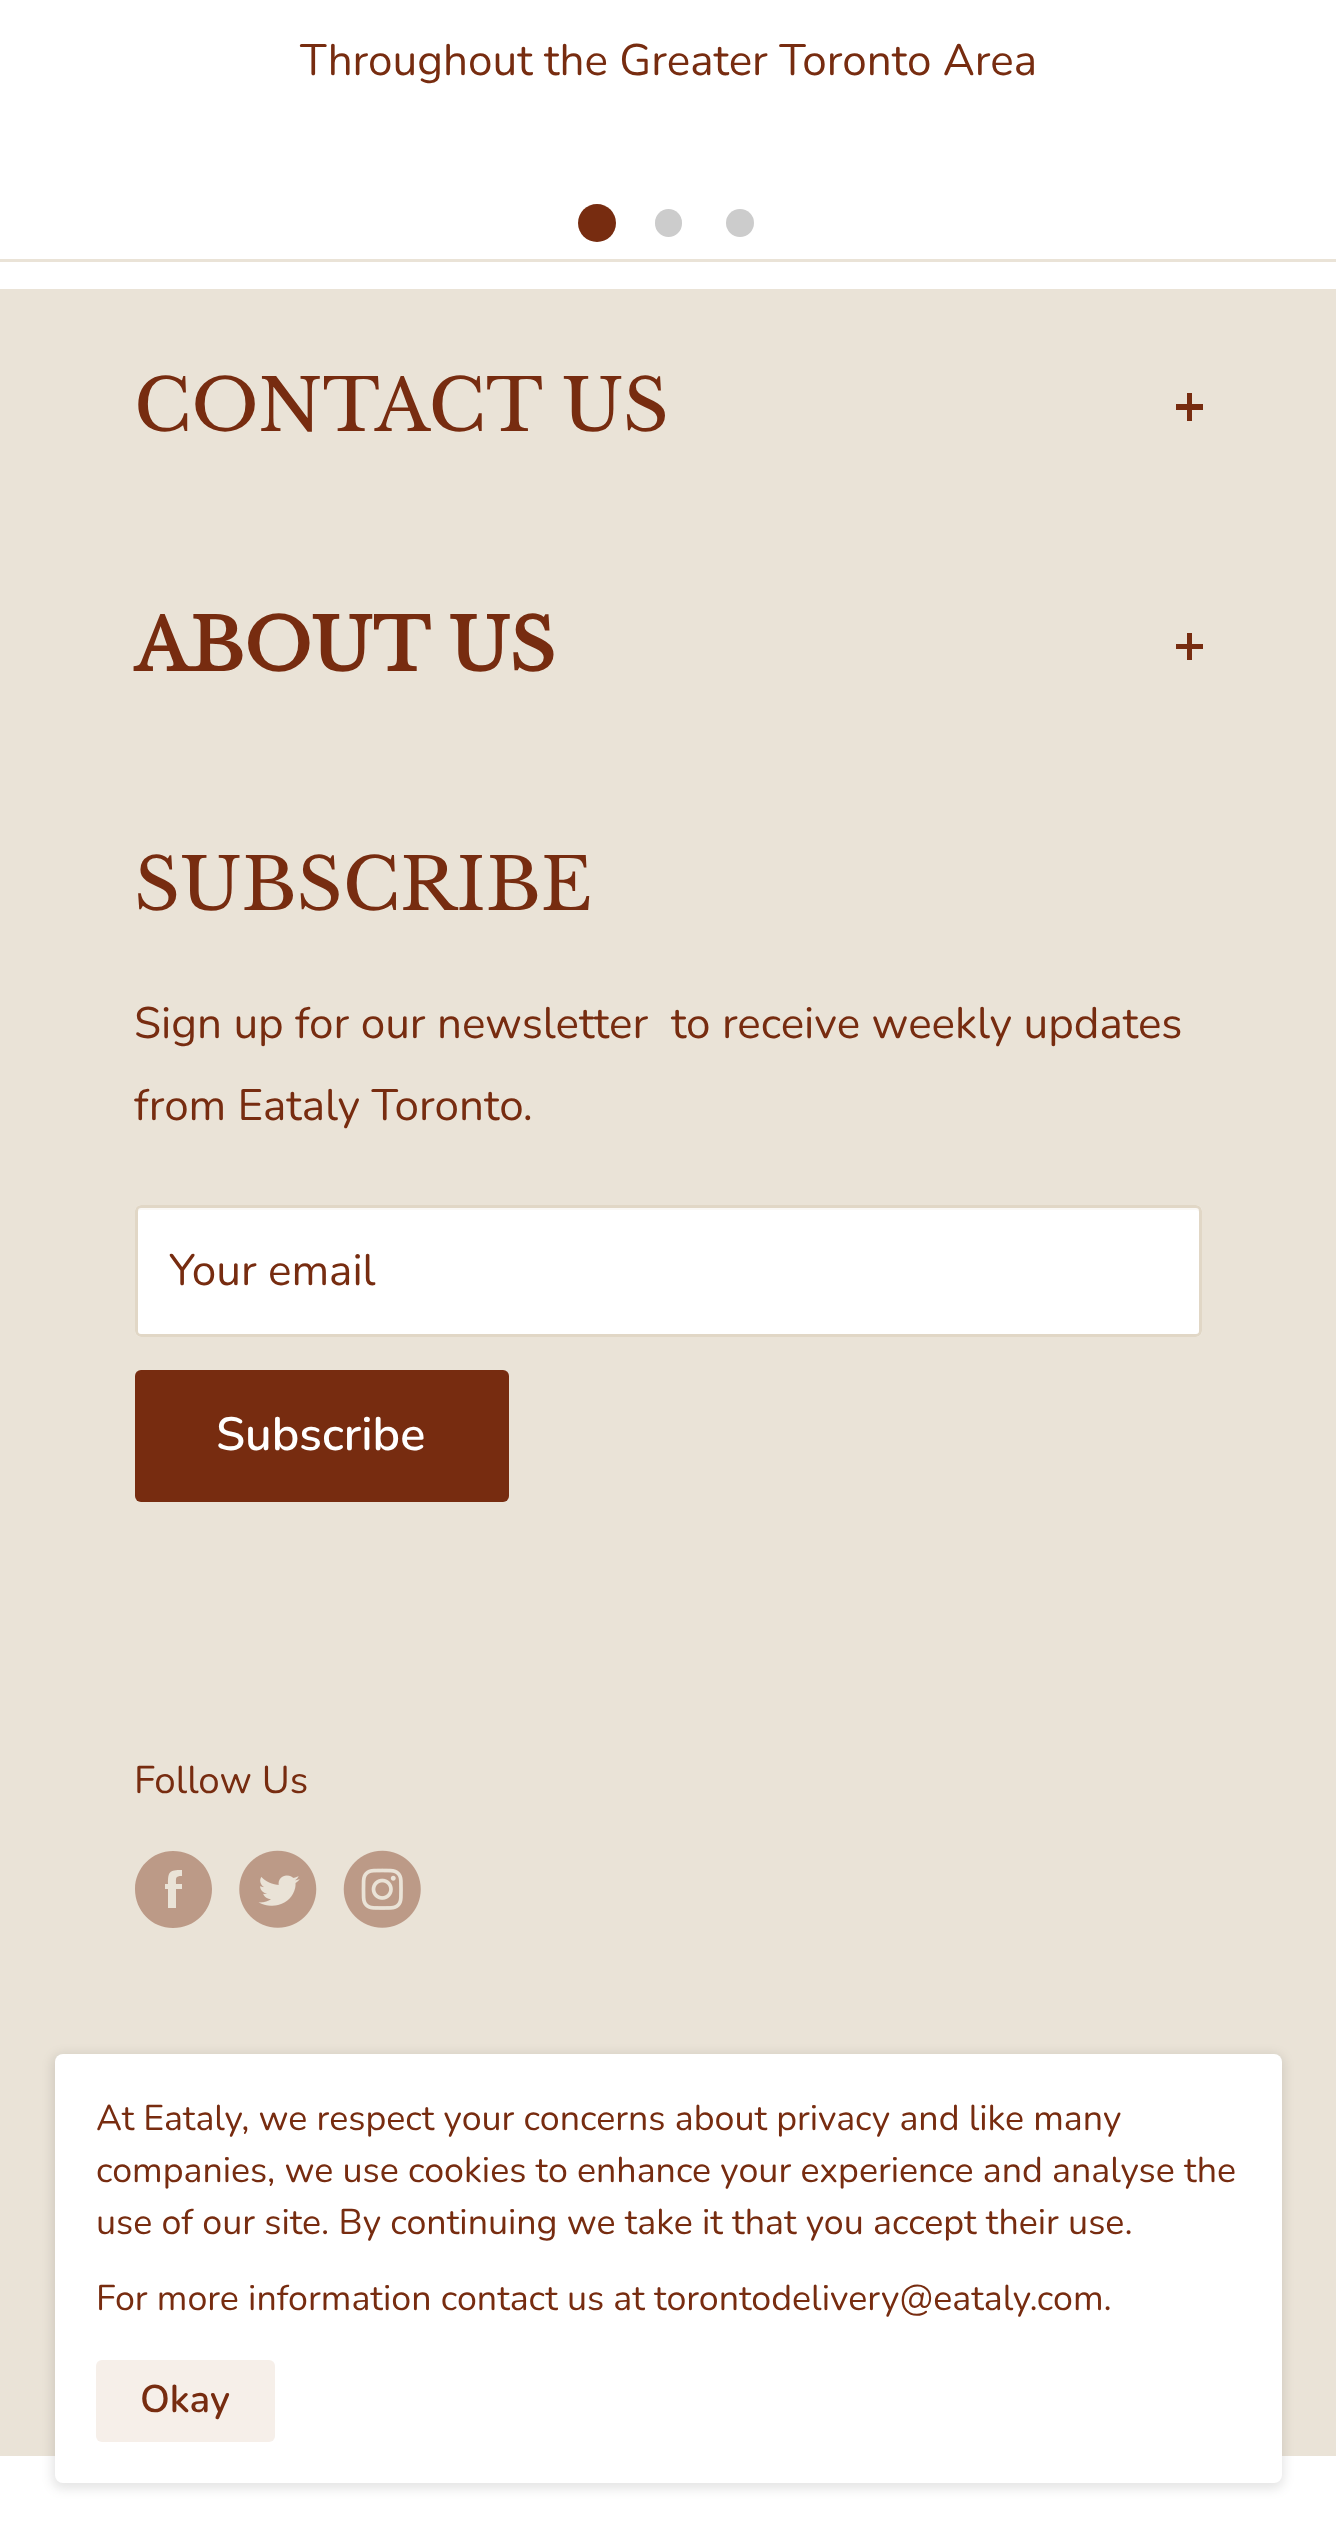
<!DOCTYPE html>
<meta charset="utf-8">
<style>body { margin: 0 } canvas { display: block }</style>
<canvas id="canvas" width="1336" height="2537"></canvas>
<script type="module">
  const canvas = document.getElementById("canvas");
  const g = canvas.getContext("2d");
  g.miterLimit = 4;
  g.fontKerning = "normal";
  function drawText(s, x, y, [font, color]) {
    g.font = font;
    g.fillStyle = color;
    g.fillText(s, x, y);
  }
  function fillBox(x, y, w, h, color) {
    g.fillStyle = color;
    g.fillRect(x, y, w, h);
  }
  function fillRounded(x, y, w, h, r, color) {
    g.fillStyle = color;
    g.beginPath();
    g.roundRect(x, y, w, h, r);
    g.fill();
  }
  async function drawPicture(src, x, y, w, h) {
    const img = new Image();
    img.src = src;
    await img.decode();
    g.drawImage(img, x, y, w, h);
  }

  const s1 = ["44px Nunito", "#772C10"];
  const s2 = ["71.5px Libre Baskerville", "#772C10"];
  const s3 = ["bold 71.5px Libre Baskerville", "#772C10"];
  const s4 = ["600 46.75px Nunito", "#FFFFFF"];
  const s5 = ["38.5px Nunito", "#772C10"];
  const s6 = ["35.75px Nunito", "#772C10"];
  const s7 = ["600 38.5px Nunito", "#772C10"];

  fillBox(0, 0, 1336, 2537, "#FFFFFF");
  drawText("Throughout the Greater Toronto Area", 300, 75, s1);
  g.beginPath();
  g.arc(597, 223, 19, 0, Math.PI * 2);
  g.fill();
  fillRounded(655, 209, 27, 28, 13.5, "#CCCCCC");
  g.beginPath();
  g.arc(740, 223, 14, 0, Math.PI * 2);
  g.fill();
  fillBox(0, 259, 1336, 3, "#EAE3D7");
  fillBox(0, 289, 1336, 2167, "#EAE3D7");
  drawText("CONTACT US", 134, 431, s2);
  fillBox(1187, 393, 5, 28, "#772C10");
  fillBox(1176, 404, 27, 6, "#772C10");
  drawText("ABOUT US", 134, 671, s3);
  fillBox(1187, 633, 5, 27, "#772C10");
  fillBox(1176, 644, 27, 5, "#772C10");
  drawText("SUBSCRIBE", 134, 910, s2);
  drawText("Sign up for our newsletter  to receive weekly updates", 134, 1038, s1);
  drawText("from Eataly Toronto.", 134, 1120, s1);
  fillRounded(135, 1205, 1067, 132, 6, "#FFFFFF");
  g.fillStyle = "#FAF8F5";
  g.beginPath();
  g.moveTo(140, 1210);
  g.lineTo(1196, 1210);
  g.bezierCurveTo(1198, 1210, 1199, 1211, 1199, 1213);
  g.lineTo(1199, 1210);
  g.bezierCurveTo(1199, 1208, 1198, 1207, 1196, 1207);
  g.lineTo(141, 1207);
  g.bezierCurveTo(139, 1207, 138, 1208, 138, 1210);
  g.lineTo(138, 1213);
  g.bezierCurveTo(138, 1211, 139, 1210, 140, 1210);
  g.closePath();
  g.fill();
  g.beginPath();
  g.roundRect(136.5, 1206.5, 1064, 129, 4.5);
  g.strokeStyle = "#E1D7C6";
  g.lineWidth = 3;
  g.stroke();
  drawText("Your email", 169, 1285, s1);
  fillRounded(135, 1370, 374, 132, 6, "#772C10");
  drawText("Subscribe", 216, 1450, s4);
  drawText("Follow Us", 134, 1793, s5);
  g.fillStyle = "#BC9A87";
  g.beginPath();
  g.moveTo(173, 1928);
  g.bezierCurveTo(152, 1928, 135, 1911, 135, 1889);
  g.bezierCurveTo(135, 1868, 152, 1851, 173, 1851);
  g.bezierCurveTo(195, 1851, 212, 1868, 212, 1889);
  g.bezierCurveTo(212, 1911, 195, 1928, 173, 1928);
  g.closePath();
  g.moveTo(182, 1884);
  g.lineTo(176, 1884);
  g.bezierCurveTo(176, 1878, 175, 1876, 182, 1876);
  g.lineTo(182, 1870);
  g.bezierCurveTo(169, 1870, 168, 1872, 168, 1884);
  g.lineTo(165, 1884);
  g.lineTo(165, 1889);
  g.lineTo(168, 1889);
  g.lineTo(168, 1908);
  g.lineTo(176, 1908);
  g.lineTo(176, 1889);
  g.lineTo(182, 1889);
  g.closePath();
  g.fill("evenodd");
  await drawPicture("pic1.png", 239, 1850, 78, 78);
  await drawPicture("pic2.png", 343, 1850, 78, 78);
  g.fillStyle = "rgba(0, 0, 0, 0.1)";
  g.filter = "blur(5.5px)";
  g.beginPath();
  g.roundRect(52, 2054, 1232, 435, 11);
  g.fill();
  g.filter = "none";
  fillRounded(55, 2054, 1227, 429, 8, "#FFFFFF");
  drawText("At Eataly, we respect your concerns about privacy and like many", 96, 2130, s6);
  drawText("companies, we use cookies to enhance your experience and analyse the", 96, 2182, s6);
  drawText("use of our site. By continuing we take it that you accept their use.", 96, 2234, s6);
  drawText("For more information contact us at torontodelivery@eataly.com.", 96, 2310, s6);
  fillRounded(96, 2360, 179, 82, 6, "#F6EFE9");
  drawText("Okay", 140, 2412, s7);
</script>
